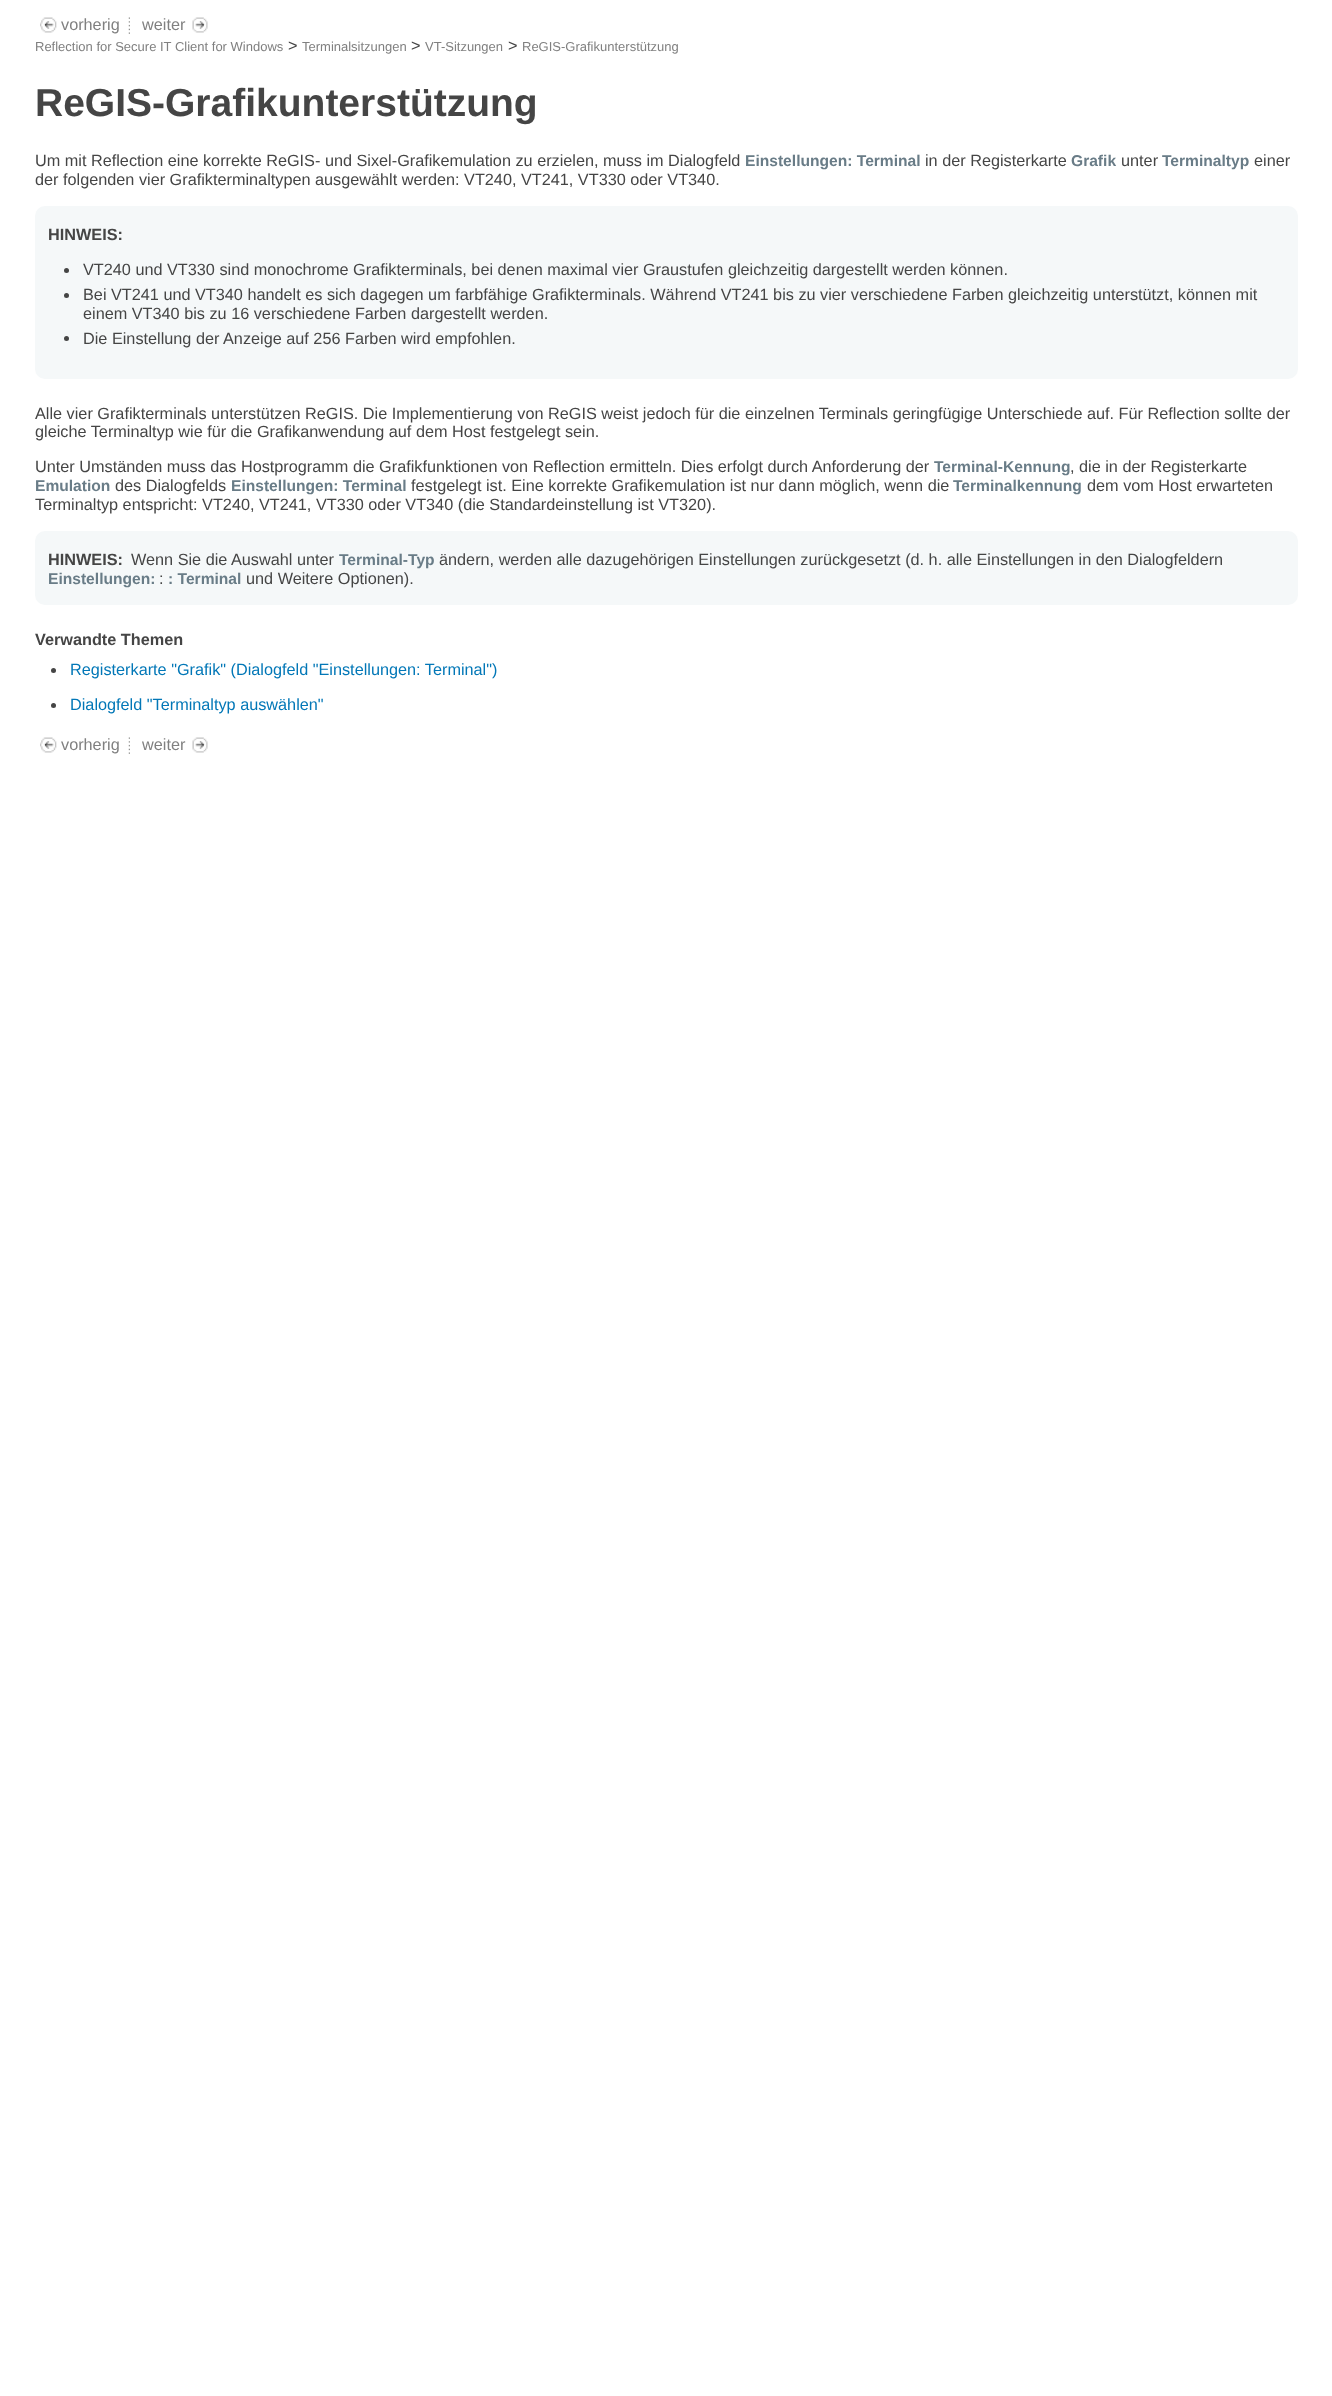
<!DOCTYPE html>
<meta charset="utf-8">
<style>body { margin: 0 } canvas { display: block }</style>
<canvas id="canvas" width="1332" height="2396"></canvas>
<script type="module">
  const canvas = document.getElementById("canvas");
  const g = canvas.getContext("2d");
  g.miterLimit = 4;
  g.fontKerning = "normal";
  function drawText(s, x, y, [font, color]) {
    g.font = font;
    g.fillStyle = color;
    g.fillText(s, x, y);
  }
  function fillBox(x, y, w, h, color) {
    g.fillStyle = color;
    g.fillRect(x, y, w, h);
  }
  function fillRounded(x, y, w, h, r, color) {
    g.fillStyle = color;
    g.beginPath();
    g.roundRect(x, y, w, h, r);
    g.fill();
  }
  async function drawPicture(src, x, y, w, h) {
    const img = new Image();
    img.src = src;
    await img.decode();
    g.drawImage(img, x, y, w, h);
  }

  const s1 = ["16.25px Liberation Sans", "#808080"];
  const s2 = ["13px Liberation Sans", "#808080"];
  const s3 = ["16.25px Liberation Sans", "#454545"];
  const s4 = ["bold 39px Liberation Sans", "#454545"];
  const s5 = ["bold 15.6px Liberation Sans", "#697C87"];
  const s6 = ["bold 16.25px Liberation Sans", "#454545"];
  const s7 = ["16.25px Liberation Sans", "#0277B7"];

  fillBox(0, 0, 1332, 2396, "#FFFFFF");
  await drawPicture("pic1.png", 40, 17, 17, 16);
  drawText("vorherig", 61, 30, s1);
  await drawPicture("pic2.png", 128, 17, 2, 17);
  drawText("weiter", 142, 30, s1);
  await drawPicture("pic3.png", 192, 17, 16, 16);
  drawText("Reflection for Secure IT Client for Windows", 35, 51, s2);
  drawText(">", 288, 51, s3);
  drawText("Terminalsitzungen", 302, 51, s2);
  drawText(">", 411, 51, s3);
  drawText("VT-Sitzungen", 425, 51, s2);
  drawText(">", 508, 51, s3);
  drawText("ReGIS-Grafikunterstützung", 522, 51, s2);
  drawText("ReGIS-Grafikunterstützung", 35, 116, s4);
  drawText("Um mit Reflection eine korrekte ReGIS- und Sixel-Grafikemulation zu erzielen, muss im Dialogfeld", 35, 166, s3);
  drawText("Einstellungen: Terminal", 745, 166, s5);
  drawText("in der Registerkarte", 925, 166, s3);
  drawText("Grafik", 1071, 166, s5);
  drawText("unter", 1121, 166, s3);
  drawText("Terminaltyp", 1162, 166, s5);
  drawText("einer", 1254, 166, s3);
  drawText("der folgenden vier Grafikterminaltypen ausgewählt werden: VT240, VT241, VT330 oder VT340.", 35, 185, s3);
  fillRounded(35, 206, 1263, 173, 10, "#F5F8F9");
  drawText("HINWEIS:", 48, 240, s6);
  g.beginPath();
  g.arc(66.5, 270.5, 2.5, 0, Math.PI * 2);
  g.fill();
  drawText("VT240 und VT330 sind monochrome Grafikterminals, bei denen maximal vier Graustufen gleichzeitig dargestellt werden können.", 83, 275, s3);
  g.beginPath();
  g.arc(66.5, 295.5, 2.5, 0, Math.PI * 2);
  g.fill();
  drawText("Bei VT241 und VT340 handelt es sich dagegen um farbfähige Grafikterminals. Während VT241 bis zu vier verschiedene Farben gleichzeitig unterstützt, können mit", 83, 300, s3);
  drawText("einem VT340 bis zu 16 verschiedene Farben dargestellt werden.", 83, 319, s3);
  g.beginPath();
  g.arc(66.5, 338.5, 2.5, 0, Math.PI * 2);
  g.fill();
  drawText("Die Einstellung der Anzeige auf 256 Farben wird empfohlen.", 83, 344, s3);
  drawText("Alle vier Grafikterminals unterstützen ReGIS. Die Implementierung von ReGIS weist jedoch für die einzelnen Terminals geringfügige Unterschiede auf. Für Reflection sollte der", 35, 419, s3);
  drawText("gleiche Terminaltyp wie für die Grafikanwendung auf dem Host festgelegt sein.", 35, 437, s3);
  drawText("Unter Umständen muss das Hostprogramm die Grafikfunktionen von Reflection ermitteln. Dies erfolgt durch Anforderung der", 35, 472, s3);
  drawText("Terminal-Kennung", 934, 472, s5);
  drawText(", die in der Registerkarte", 1070, 472, s3);
  drawText("Emulation", 35, 491, s5);
  drawText("des Dialogfelds", 115, 491, s3);
  drawText("Einstellungen: Terminal", 231, 491, s5);
  drawText("festgelegt ist. Eine korrekte Grafikemulation ist nur dann möglich, wenn die", 411, 491, s3);
  drawText("Terminalkennung", 953, 491, s5);
  drawText("dem vom Host erwarteten", 1087, 491, s3);
  drawText("Terminaltyp entspricht: VT240, VT241, VT330 oder VT340 (die Standardeinstellung ist VT320).", 35, 510, s3);
  fillRounded(35, 531, 1263, 74, 10, "#F5F8F9");
  drawText("HINWEIS:", 48, 565, s6);
  drawText("Wenn Sie die Auswahl unter", 131, 565, s3);
  drawText("Terminal-Typ", 339, 565, s5);
  drawText("ändern, werden alle dazugehörigen Einstellungen zurückgesetzt (d. h. alle Einstellungen in den Dialogfeldern", 439, 565, s3);
  drawText("Einstellungen:", 48, 584, s5);
  drawText(":", 159, 584, s3);
  drawText(": Terminal", 168, 584, s5);
  drawText("und Weitere Optionen).", 246, 584, s3);
  drawText("Verwandte Themen", 35, 645, s6);
  g.beginPath();
  g.arc(53.5, 670.5, 2.5, 0, Math.PI * 2);
  g.fill();
  drawText("Registerkarte \"Grafik\" (Dialogfeld \"Einstellungen: Terminal\")", 70, 675, s7);
  g.fillStyle = "#454545";
  g.beginPath();
  g.arc(53.5, 705.5, 2.5, 0, Math.PI * 2);
  g.fill();
  drawText("Dialogfeld \"Terminaltyp auswählen\"", 70, 710, s7);
  await drawPicture("pic1.png", 40, 737, 17, 16);
  drawText("vorherig", 61, 750, s1);
  await drawPicture("pic2.png", 128, 737, 2, 17);
  drawText("weiter", 142, 750, s1);
  await drawPicture("pic3.png", 192, 737, 16, 16);
</script>
